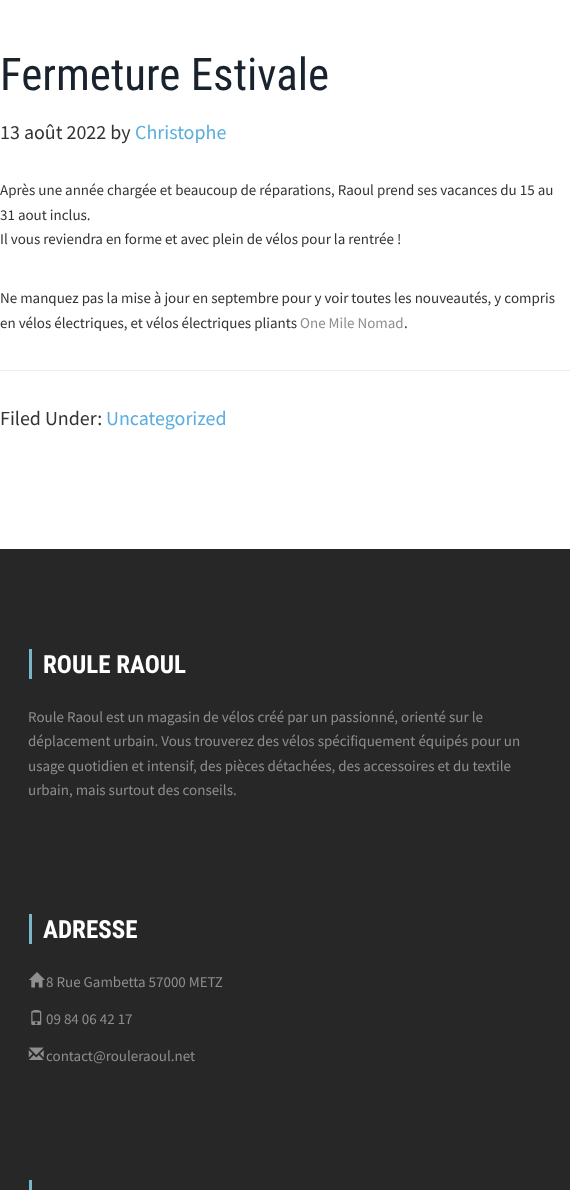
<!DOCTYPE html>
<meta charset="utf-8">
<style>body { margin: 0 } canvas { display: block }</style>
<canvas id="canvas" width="570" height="1190"></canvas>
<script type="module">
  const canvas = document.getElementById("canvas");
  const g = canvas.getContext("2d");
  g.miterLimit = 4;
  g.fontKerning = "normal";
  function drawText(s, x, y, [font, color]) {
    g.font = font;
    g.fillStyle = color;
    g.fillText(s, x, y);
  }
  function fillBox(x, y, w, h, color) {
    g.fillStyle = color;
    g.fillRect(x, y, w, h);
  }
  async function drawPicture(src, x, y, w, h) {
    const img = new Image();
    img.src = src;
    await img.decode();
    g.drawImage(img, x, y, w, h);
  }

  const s1 = ["45px Roboto Condensed", "#19232D"];
  const s2 = ["20px Source Sans Pro", "#333333"];
  const s3 = ["20px Source Sans Pro", "#5AADDD"];
  const s4 = ["15px Source Sans Pro", "#333333"];
  const s5 = ["15px Source Sans Pro", "#8E8E8E"];
  const s6 = ["bold 25px Roboto Condensed", "#FFFFFF"];

  fillBox(0, 0, 570, 1190, "#FFFFFF");
  drawText("Fermeture Estivale", 0, 90, s1);
  drawText("13 août 2022 by", 0, 139, s2);
  drawText("Christophe", 135, 139, s3);
  drawText("Après une année chargée et beaucoup de réparations, Raoul prend ses vacances du 15 au", 0, 195, s4);
  drawText("31 aout inclus.", 0, 220, s4);
  drawText("Il vous reviendra en forme et avec plein de vélos pour la rentrée !", 0, 244, s4);
  drawText("Ne manquez pas la mise à jour en septembre pour y voir toutes les nouveautés, y compris", 0, 303, s4);
  drawText("en vélos électriques, et vélos électriques pliants", 0, 328, s4);
  drawText("One Mile Nomad", 300, 328, s5);
  drawText(".", 404, 328, s4);
  fillBox(0, 370, 570, 1, "#EEEEEE");
  drawText("Filed Under:", 0, 425, s2);
  drawText("Uncategorized", 106, 425, s3);
  fillBox(0, 549, 570, 641, "#272727");
  fillBox(29, 649, 3, 30, "#79B6C8");
  drawText("ROULE RAOUL", 43, 673, s6);
  drawText("Roule Raoul est un magasin de vélos créé par un passionné, orienté sur le", 28, 722, s5);
  drawText("déplacement urbain. Vous trouverez des vélos spécifiquement équipés pour un", 28, 746, s5);
  drawText("usage quotidien et intensif, des pièces détachées, des accessoires et du textile", 28, 771, s5);
  drawText("urbain, mais surtout des conseils.", 28, 795, s5);
  fillBox(29, 914, 3, 30, "#79B6C8");
  drawText("ADRESSE", 43, 938, s6);
  await drawPicture("pic1.png", 29, 972, 16, 16);
  drawText("8 Rue Gambetta 57000 METZ", 46, 987, s5);
  await drawPicture("pic2.png", 31, 1010, 11, 15);
  drawText("09 84 06 42 17", 46, 1024, s5);
  await drawPicture("pic3.png", 28, 1047, 16, 13);
  drawText("contact@rouleraoul.net", 46, 1061, s5);
  fillBox(29, 1180, 3, 10, "#79B6C8");
</script>
